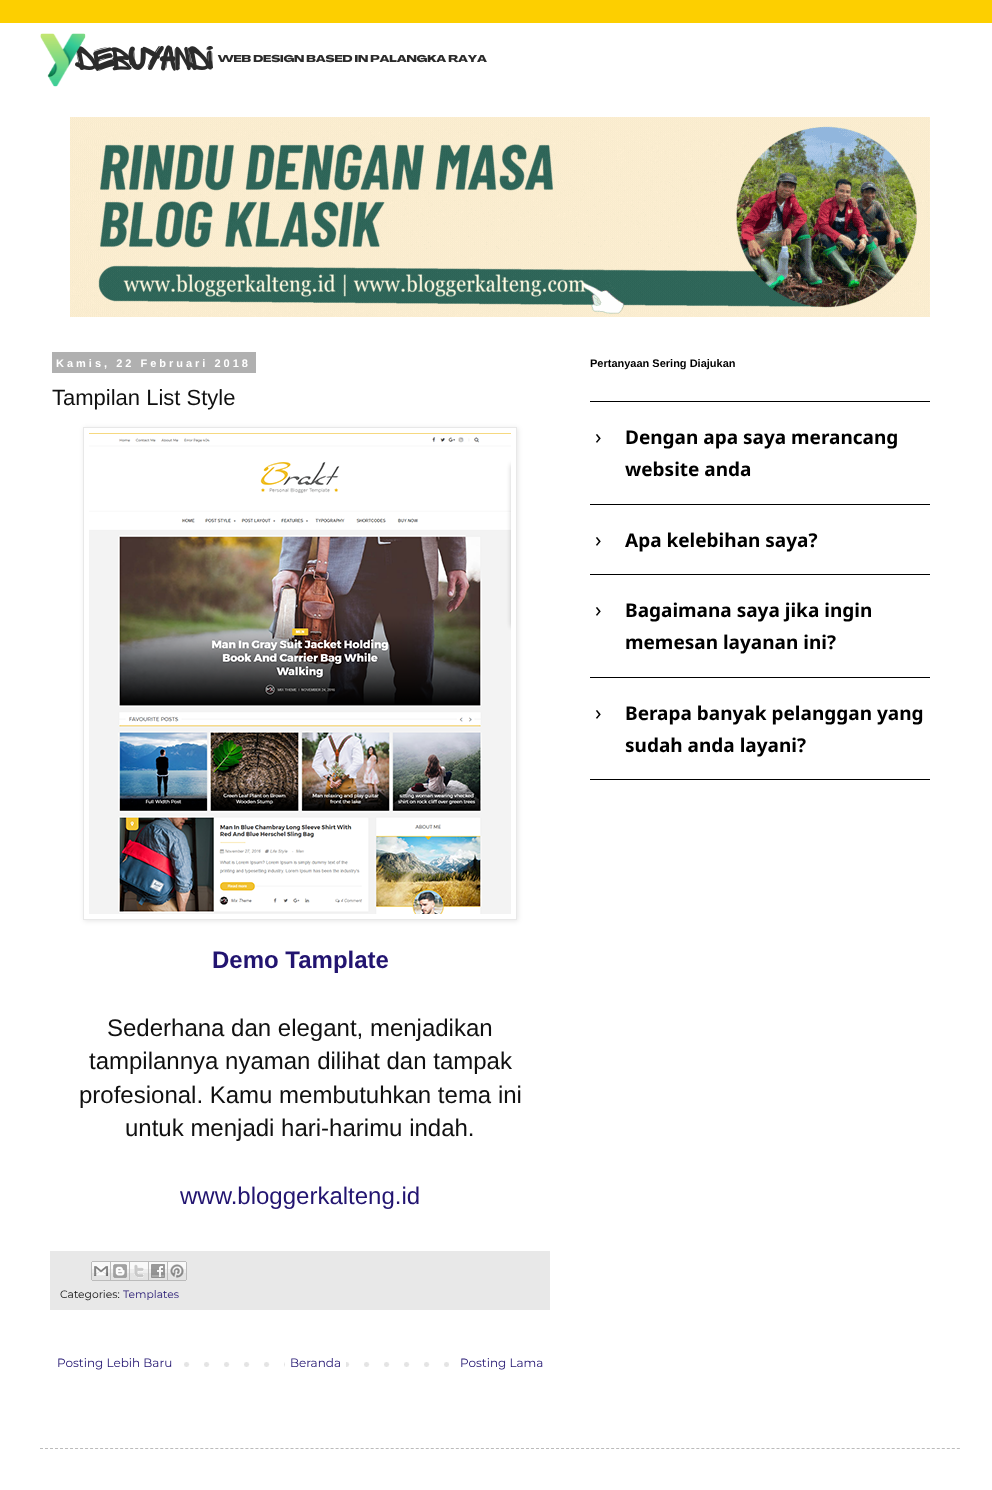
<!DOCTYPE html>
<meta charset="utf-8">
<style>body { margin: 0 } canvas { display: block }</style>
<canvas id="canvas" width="992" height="1490"></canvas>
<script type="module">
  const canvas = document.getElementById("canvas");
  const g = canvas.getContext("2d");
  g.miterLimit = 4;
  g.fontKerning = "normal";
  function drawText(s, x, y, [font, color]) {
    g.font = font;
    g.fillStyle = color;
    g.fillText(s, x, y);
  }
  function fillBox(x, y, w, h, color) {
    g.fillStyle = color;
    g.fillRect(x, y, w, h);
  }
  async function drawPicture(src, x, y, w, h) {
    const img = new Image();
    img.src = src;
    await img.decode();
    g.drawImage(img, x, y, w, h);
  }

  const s1 = ["bold 11px Liberation Sans", "#FFFFFF"];
  const s2 = ["22px Liberation Sans", "#101010"];
  const s3 = ["bold 24px Liberation Sans", "#221470"];
  const s4 = ["24px Liberation Sans", "#101010"];
  const s5 = ["24px Liberation Sans", "#221470"];
  const s6 = ["100 10.75px Montserrat", "#101010"];
  const s7 = ["100 10.75px Montserrat", "#221470"];
  const s8 = ["100 12px Montserrat", "#221470"];
  const s9 = ["bold 11px Liberation Sans", "#000000"];
  const s10 = ["21px Noto Sans", "#000000"];
  const s11 = ["bold 19px Noto Sans", "#000000"];

  fillBox(0, 0, 992, 1490, "#FDCF00");
  fillBox(0, 23, 992, 1467, "#FFFFFF");
  await drawPicture("pic1.png", 40, 33, 447, 54);
  await drawPicture("pic2.png", 70, 117, 860, 200);
  fillBox(52, 352, 204, 21, "#B0B0B0");
  g.letterSpacing = "3px";
  drawText("Kamis, 22 Februari 2018", 56, 367, s1);
  g.letterSpacing = "0px";
  drawText("Tampilan List Style", 52, 405, s2);
  g.save();
  g.beginPath();
  g.moveTo(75, 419);
  g.lineTo(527, 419);
  g.lineTo(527, 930);
  g.lineTo(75, 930);
  g.closePath();
  g.moveTo(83, 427);
  g.lineTo(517, 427);
  g.lineTo(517, 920);
  g.lineTo(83, 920);
  g.closePath();
  g.clip("evenodd");
  g.fillStyle = "rgba(0, 0, 0, 0.1)";
  g.filter = "blur(2.5px)";
  g.beginPath();
  g.rect(84, 428, 434, 493);
  g.fill();
  g.filter = "none";
  g.restore();
  g.strokeStyle = "#E8E8E8";
  g.strokeRect(83.5, 427.5, 433, 492);
  await drawPicture("pic3.png", 89, 433, 422, 481);
  drawText("Demo Tamplate", 212, 968, s3);
  drawText("Sederhana dan elegant, menjadikan", 107, 1036, s4);
  drawText("tampilannya nyaman dilihat dan tampak", 89, 1069, s4);
  drawText("profesional. Kamu membutuhkan tema ini", 79, 1103, s4);
  drawText("untuk menjadi hari-harimu indah.", 125, 1136, s4);
  drawText("www.bloggerkalteng.id", 180, 1204, s5);
  fillBox(50, 1251, 500, 59, "#E8E8E8");
  await drawPicture("pic4.png", 91, 1261, 20, 20);
  await drawPicture("pic5.png", 111, 1261, 19, 20);
  await drawPicture("pic6.png", 130, 1261, 19, 20);
  await drawPicture("pic7.png", 149, 1261, 19, 20);
  await drawPicture("pic8.png", 168, 1261, 19, 20);
  drawText("Categories:", 60, 1298, s6);
  drawText("Templates", 123, 1298, s7);
  await drawPicture("pic9.png", 184, 1362, 265, 5);
  drawText("Posting Lebih Baru", 57, 1367, s8);
  fillBox(285, 1362, 61, 5, "#FFFFFF");
  drawText("Beranda", 290, 1367, s8);
  drawText("Posting Lama", 460, 1367, s8);
  drawText("Pertanyaan Sering Diajukan", 590, 367, s9);
  fillBox(590, 401, 340, 1, "#000000");
  fillBox(590, 504, 340, 1, "#000000");
  drawText("›", 595, 444, s10);
  drawText("Dengan apa saya merancang", 625, 444, s11);
  drawText("website anda", 625, 476, s11);
  fillBox(590, 574, 340, 1, "#000000");
  drawText("›", 595, 547, s10);
  drawText("Apa kelebihan saya?", 625, 547, s11);
  fillBox(590, 677, 340, 1, "#000000");
  drawText("›", 595, 617, s10);
  drawText("Bagaimana saya jika ingin", 625, 617, s11);
  drawText("memesan layanan ini?", 625, 649, s11);
  fillBox(590, 779, 340, 1, "#000000");
  drawText("›", 595, 720, s10);
  drawText("Berapa banyak pelanggan yang", 625, 720, s11);
  drawText("sudah anda layani?", 625, 752, s11);
  g.beginPath();
  g.moveTo(40, 1448.5);
  g.lineTo(960, 1448.5);
  g.strokeStyle = "#BBBBBB";
  g.setLineDash([3, 2.01]);
  g.stroke();
</script>
